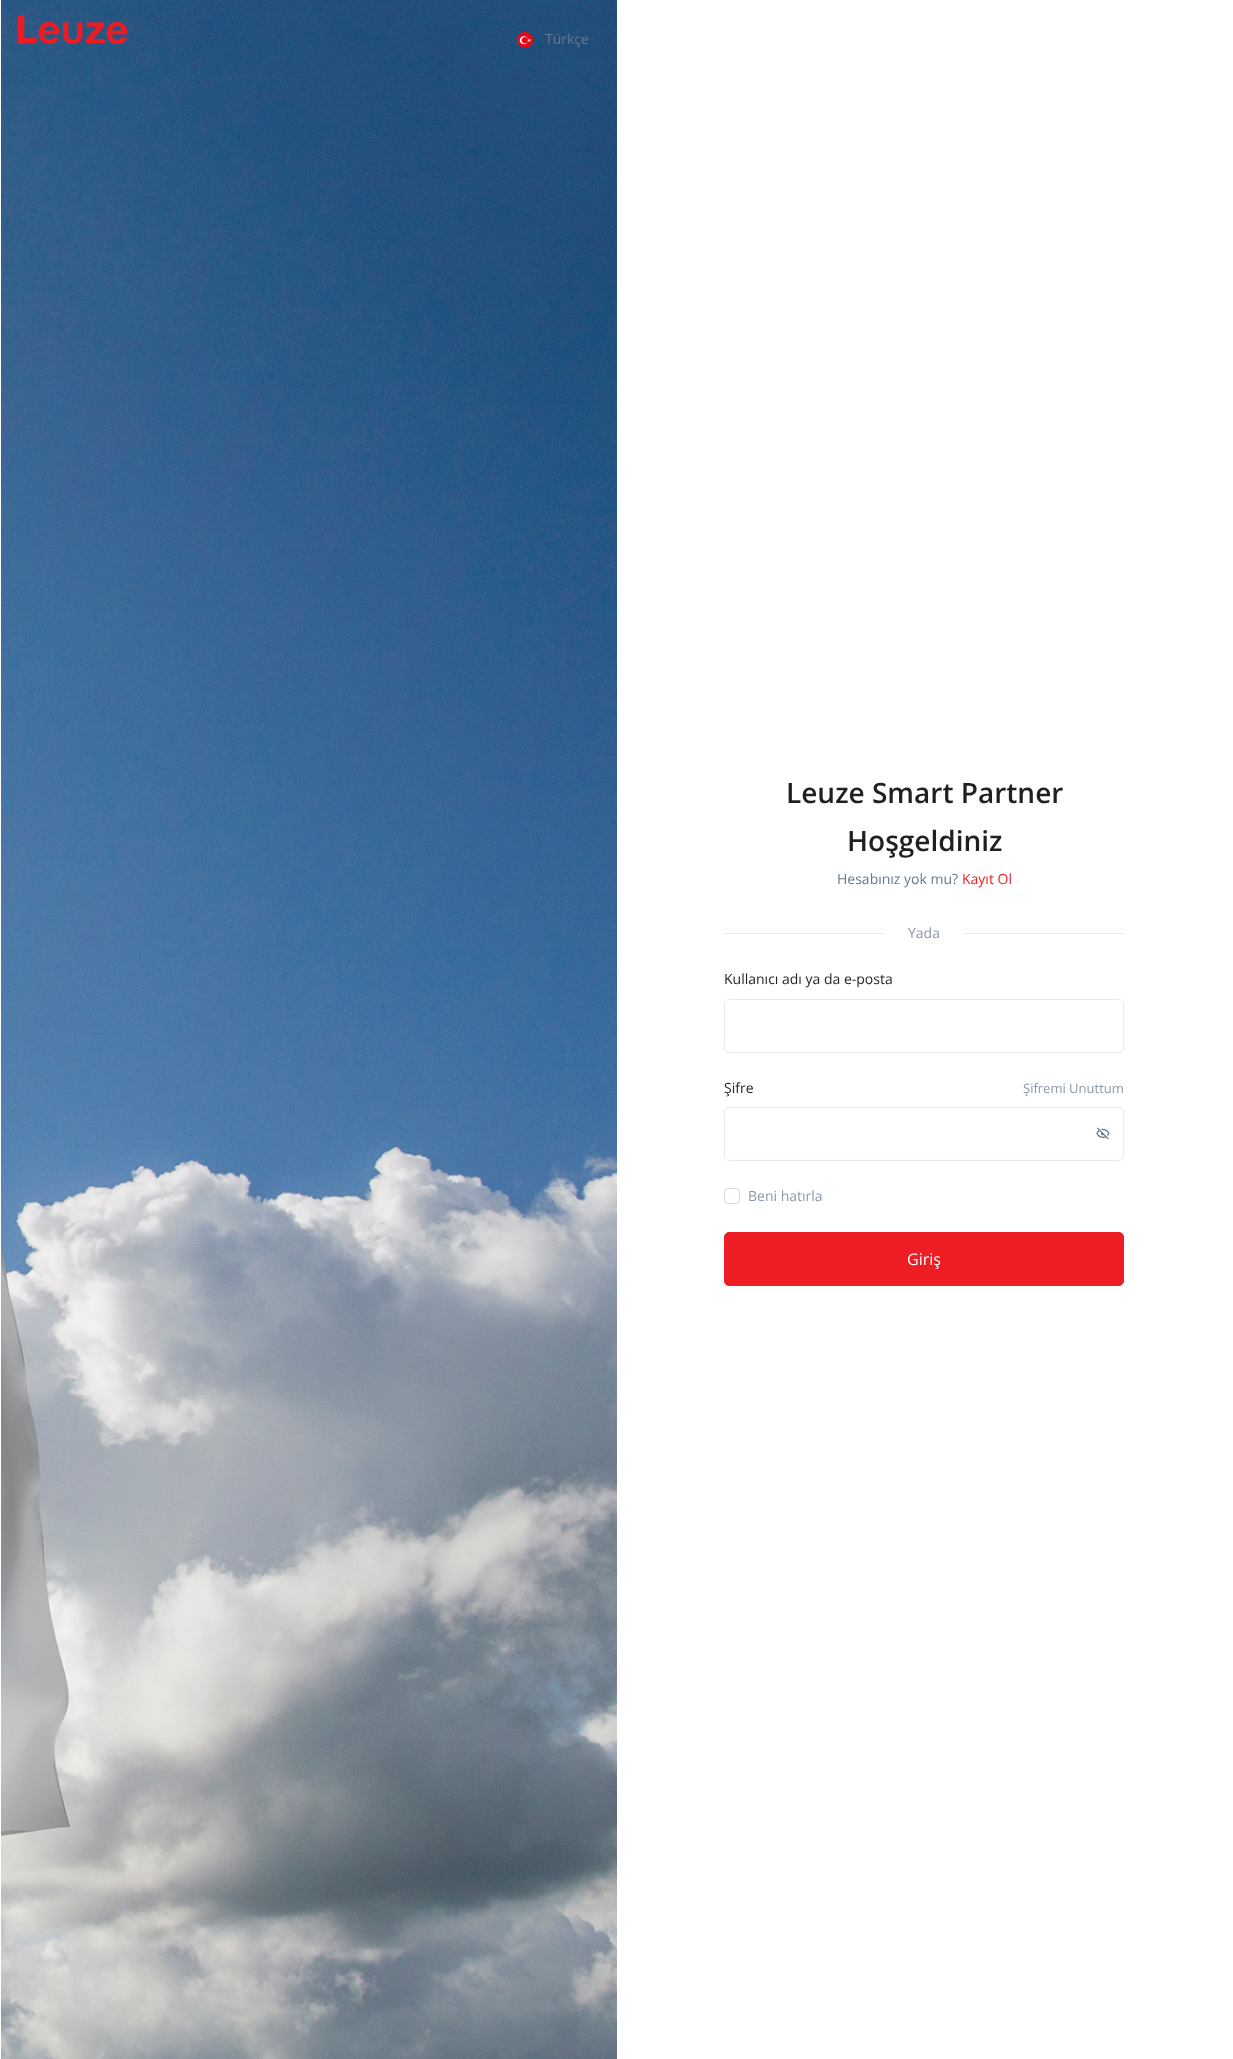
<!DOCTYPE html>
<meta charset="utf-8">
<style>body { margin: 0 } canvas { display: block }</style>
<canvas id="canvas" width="1233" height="2059"></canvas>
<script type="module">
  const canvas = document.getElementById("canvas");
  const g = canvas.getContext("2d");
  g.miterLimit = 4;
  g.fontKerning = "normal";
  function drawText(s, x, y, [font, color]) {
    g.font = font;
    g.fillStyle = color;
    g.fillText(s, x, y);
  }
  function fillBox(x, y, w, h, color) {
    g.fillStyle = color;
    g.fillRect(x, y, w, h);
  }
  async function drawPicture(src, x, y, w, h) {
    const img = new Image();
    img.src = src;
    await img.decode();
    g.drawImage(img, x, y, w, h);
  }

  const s1 = ["14px Open Sans", "#677788"];
  const s2 = ["600 28px Open Sans", "#1E2022"];
  const s3 = ["14px Open Sans", "#EE1D23"];
  const s4 = ["14px Open Sans", "#8C98A4"];
  const s5 = ["14px Open Sans", "#1E2022"];
  const s6 = ["13px Open Sans", "#8C98A4"];
  const s7 = ["16px Open Sans", "#FFFFFF"];

  fillBox(0, 0, 1233, 2059, "#FFFFFF");
  await drawPicture("pic1.png", 1, 0, 616, 2059);
  await drawPicture("pic2.png", 18, 16, 110, 28);
  await drawPicture("pic3.png", 517, 32, 16, 16);
  drawText("Türkçe", 545, 44, s1);
  drawText("Leuze Smart Partner", 786, 803, s2);
  drawText("Hoşgeldiniz", 847, 851, s2);
  drawText("Hesabınız yok mu?", 837, 884, s1);
  drawText("Kayıt Ol", 962, 884, s3);
  fillBox(724, 933, 160, 1, "#E7EAF3");
  drawText("Yada", 908, 938, s4);
  fillBox(964, 933, 160, 1, "#E7EAF3");
  drawText("Kullanıcı adı ya da e-posta", 724, 984, s5);
  g.beginPath();
  g.roundRect(724.5, 999.5, 399, 53, 4.5);
  g.strokeStyle = "#E7EAF3";
  g.stroke();
  drawText("Şifre", 724, 1093, s5);
  drawText("Şifremi Unuttum", 1023, 1093, s6);
  g.beginPath();
  g.roundRect(724.5, 1107.5, 399, 53, 4.5);
  g.stroke();
  await drawPicture("pic4.png", 1096, 1127, 14, 13);
  g.beginPath();
  g.roundRect(724.5, 1188.5, 15, 15, 3.5);
  g.strokeStyle = "#D6DBEB";
  g.stroke();
  drawText("Beni hatırla", 748, 1201, s4);
  g.fillStyle = "#EE1D23";
  g.beginPath();
  g.roundRect(724.5, 1232.5, 399, 53, 4.5);
  g.fill();
  g.strokeStyle = "#EE1D23";
  g.stroke();
  drawText("Giriş", 907, 1265, s7);
</script>
